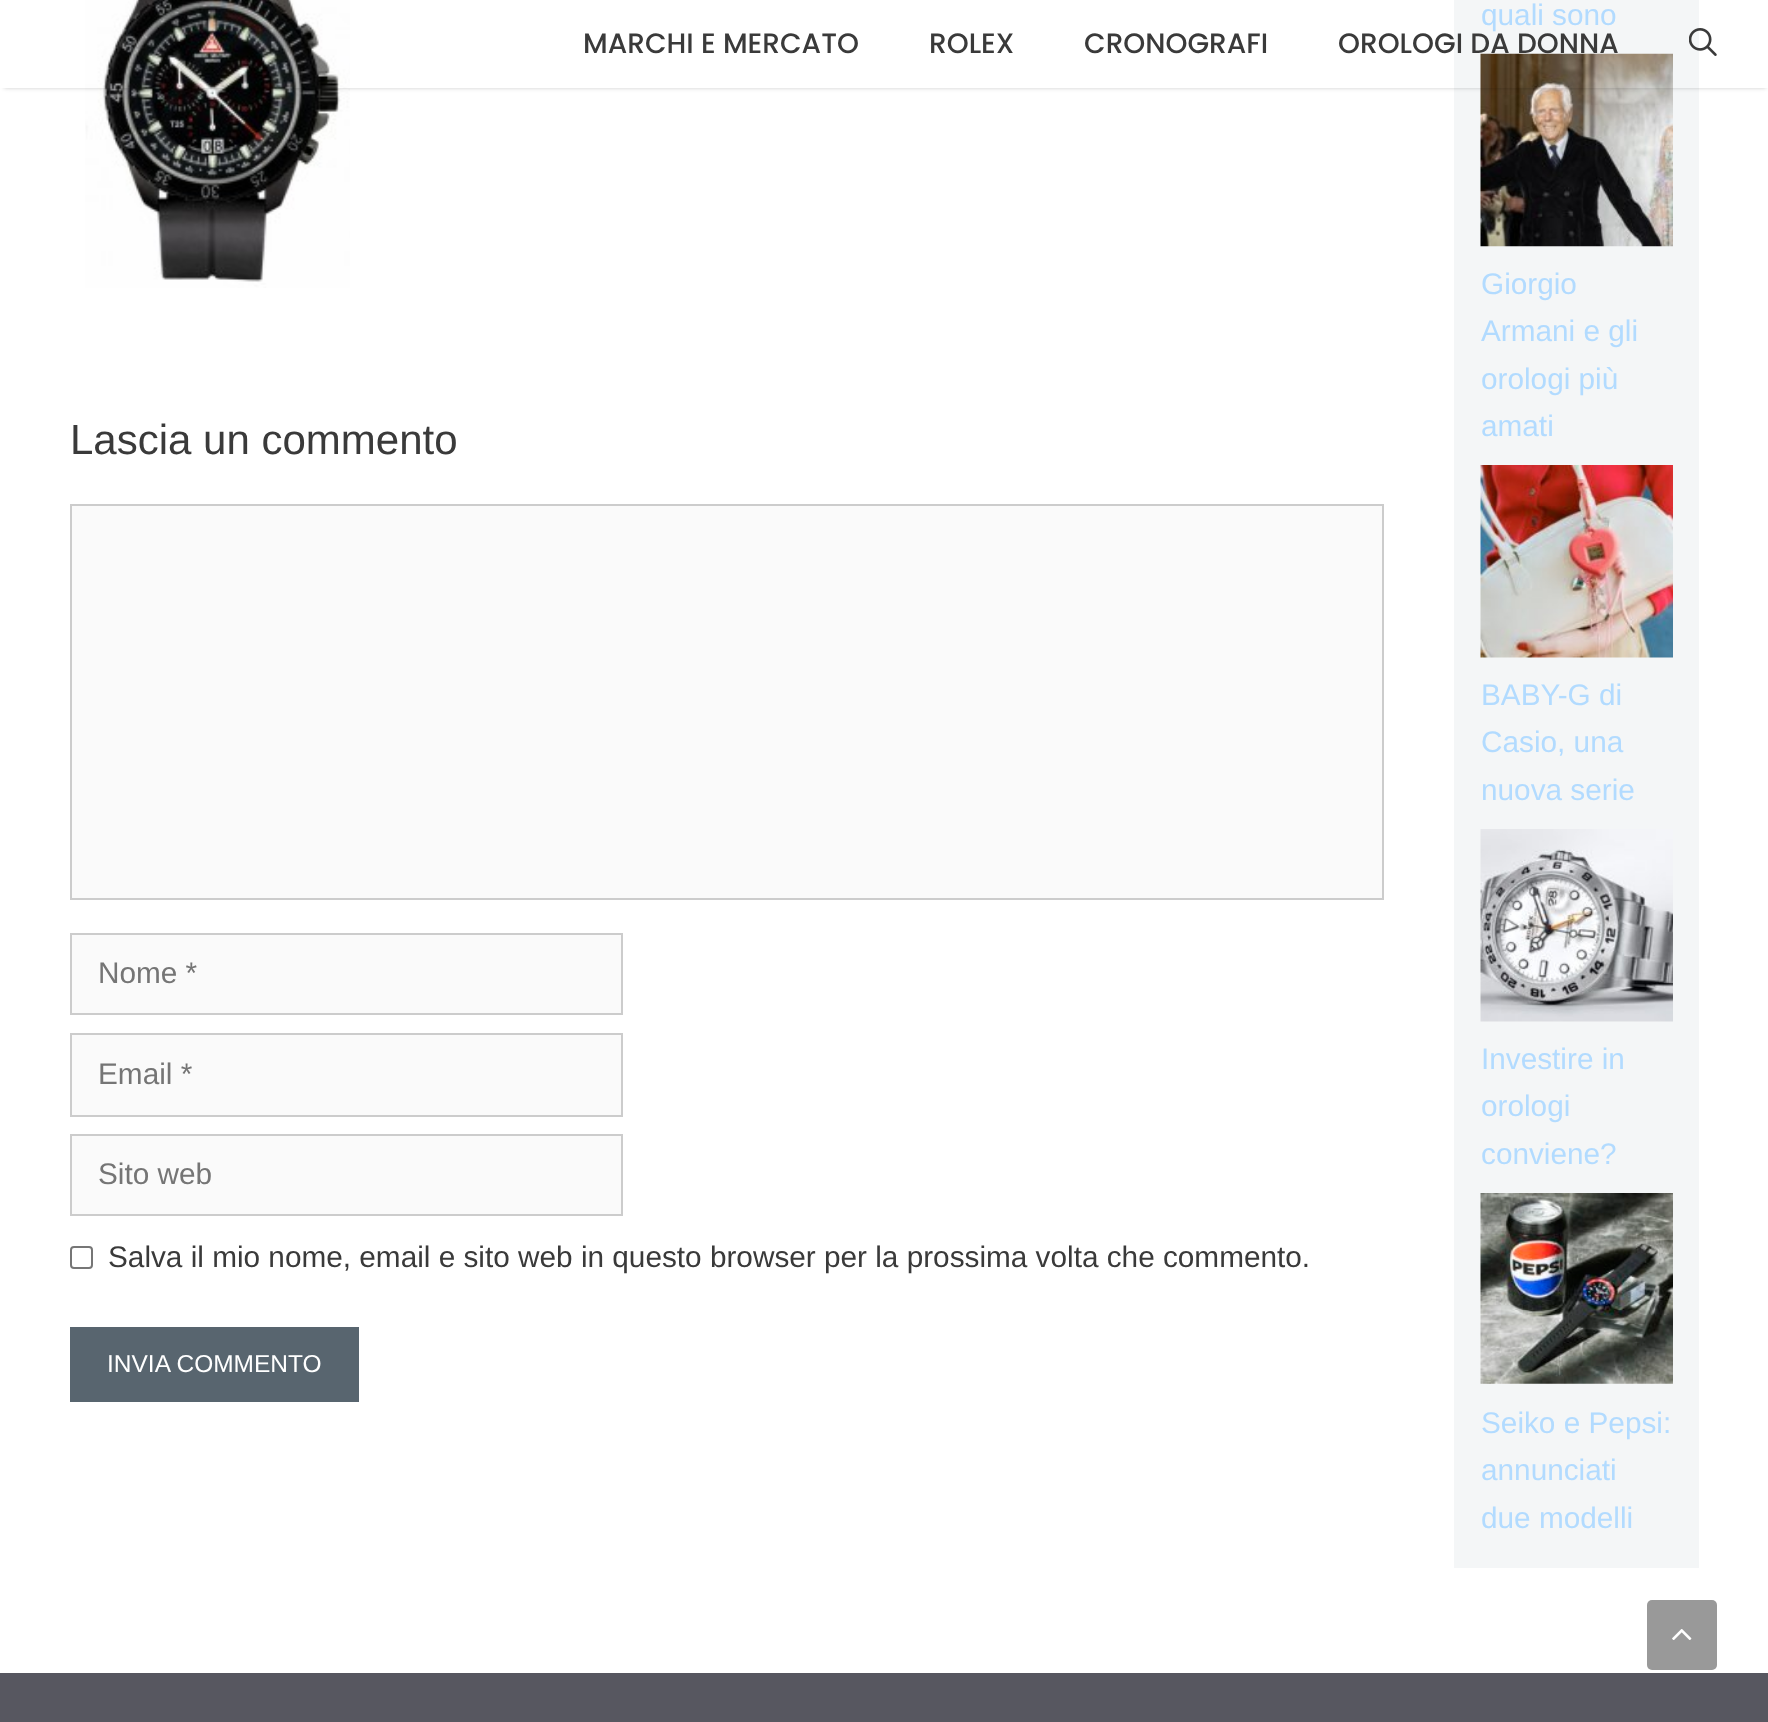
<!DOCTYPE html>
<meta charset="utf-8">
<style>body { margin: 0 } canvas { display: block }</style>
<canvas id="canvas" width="1768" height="1722"></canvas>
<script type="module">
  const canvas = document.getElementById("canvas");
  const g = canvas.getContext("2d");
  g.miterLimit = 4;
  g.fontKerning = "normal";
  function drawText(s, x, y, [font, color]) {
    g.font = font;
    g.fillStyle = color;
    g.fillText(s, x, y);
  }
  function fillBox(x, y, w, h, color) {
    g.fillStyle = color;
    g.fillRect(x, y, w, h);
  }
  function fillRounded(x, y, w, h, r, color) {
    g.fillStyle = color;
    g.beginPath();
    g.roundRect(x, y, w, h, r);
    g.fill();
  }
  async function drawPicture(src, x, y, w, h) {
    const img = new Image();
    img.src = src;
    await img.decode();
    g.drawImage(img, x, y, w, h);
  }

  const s1 = ["42px Liberation Sans", "#3A3A3A"];
  const s2 = ["29.75px Liberation Sans", "#757575"];
  const s3 = ["29.75px Liberation Sans", "#3A3A3A"];
  const s4 = ["24.5px Liberation Sans", "#FFFFFF"];
  const s5 = ["29.75px Liberation Sans", "#B2DBFF"];
  const s6 = ["500 28px Poppins", "#3A3A3A"];

  fillBox(0, 0, 1768, 1722, "#FFFFFF");
  await drawPicture("pic1.png", 85, 0, 265, 288);
  drawText("Lascia un commento", 70, 454, s1);
  g.fillStyle = "#FAFAFA";
  g.beginPath();
  g.rect(71, 505, 1312, 394);
  g.fill();
  g.strokeStyle = "#CCCCCC";
  g.lineWidth = 2;
  g.stroke();
  g.beginPath();
  g.rect(71, 934, 551, 80);
  g.fill();
  g.stroke();
  drawText("Nome *", 98, 983, s2);
  g.fillStyle = "#FAFAFA";
  g.beginPath();
  g.rect(71, 1034, 551, 82);
  g.fill();
  g.stroke();
  drawText("Email *", 98, 1084, s2);
  g.fillStyle = "#FAFAFA";
  g.beginPath();
  g.rect(71, 1135, 551, 80);
  g.fill();
  g.stroke();
  drawText("Sito web", 98, 1184, s2);
  g.beginPath();
  g.roundRect(71, 1247, 21, 21, 3);
  g.strokeStyle = "#767676";
  g.stroke();
  drawText("Salva il mio nome, email e sito web in questo browser per la prossima volta che commento.", 108, 1267, s3);
  fillBox(70, 1327, 289, 75, "#58656F");
  drawText("INVIA COMMENTO", 107, 1372, s4);
  fillBox(1454, 0, 245, 1568, "#F4F6F7");
  drawText("quali sono", 1481, 25, s5);
  await drawPicture("pic2.png", 1480, 53, 193, 194);
  drawText("Giorgio", 1481, 294, s5);
  drawText("Armani e gli", 1481, 341, s5);
  drawText("orologi più", 1481, 389, s5);
  drawText("amati", 1481, 436, s5);
  await drawPicture("pic3.png", 1480, 465, 193, 193);
  drawText("BABY-G di", 1481, 705, s5);
  drawText("Casio, una", 1481, 752, s5);
  drawText("nuova serie", 1481, 800, s5);
  await drawPicture("pic4.png", 1480, 829, 193, 193);
  drawText("Investire in", 1481, 1069, s5);
  drawText("orologi", 1481, 1116, s5);
  drawText("conviene?", 1481, 1164, s5);
  await drawPicture("pic5.png", 1480, 1193, 193, 191);
  drawText("Seiko e Pepsi:", 1481, 1433, s5);
  drawText("annunciati", 1481, 1480, s5);
  drawText("due modelli", 1481, 1528, s5);
  g.save();
  g.beginPath();
  g.moveTo(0, 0);
  g.lineTo(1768, 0);
  g.lineTo(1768, 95);
  g.lineTo(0, 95);
  g.closePath();
  g.moveTo(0, 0);
  g.lineTo(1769, 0);
  g.lineTo(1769, 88);
  g.lineTo(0, 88);
  g.closePath();
  g.clip("evenodd");
  g.fillStyle = "rgba(0, 0, 0, 0.2)";
  g.filter = "blur(2px)";
  g.beginPath();
  g.rect(4, 7, 1762, 81);
  g.fill();
  g.filter = "none";
  g.restore();
  drawText("MARCHI E MERCATO", 583, 53, s6);
  drawText("ROLEX", 929, 53, s6);
  drawText("CRONOGRAFI", 1084, 53, s6);
  drawText("OROLOGI DA DONNA", 1338, 53, s6);
  await drawPicture("pic6.png", 1689, 28, 28, 28);
  fillRounded(1647, 1600, 70, 70, 5, "#999999");
  await drawPicture("pic7.png", 1672, 1629, 20, 11);
  fillBox(0, 1673, 1768, 49, "#575760");
</script>
